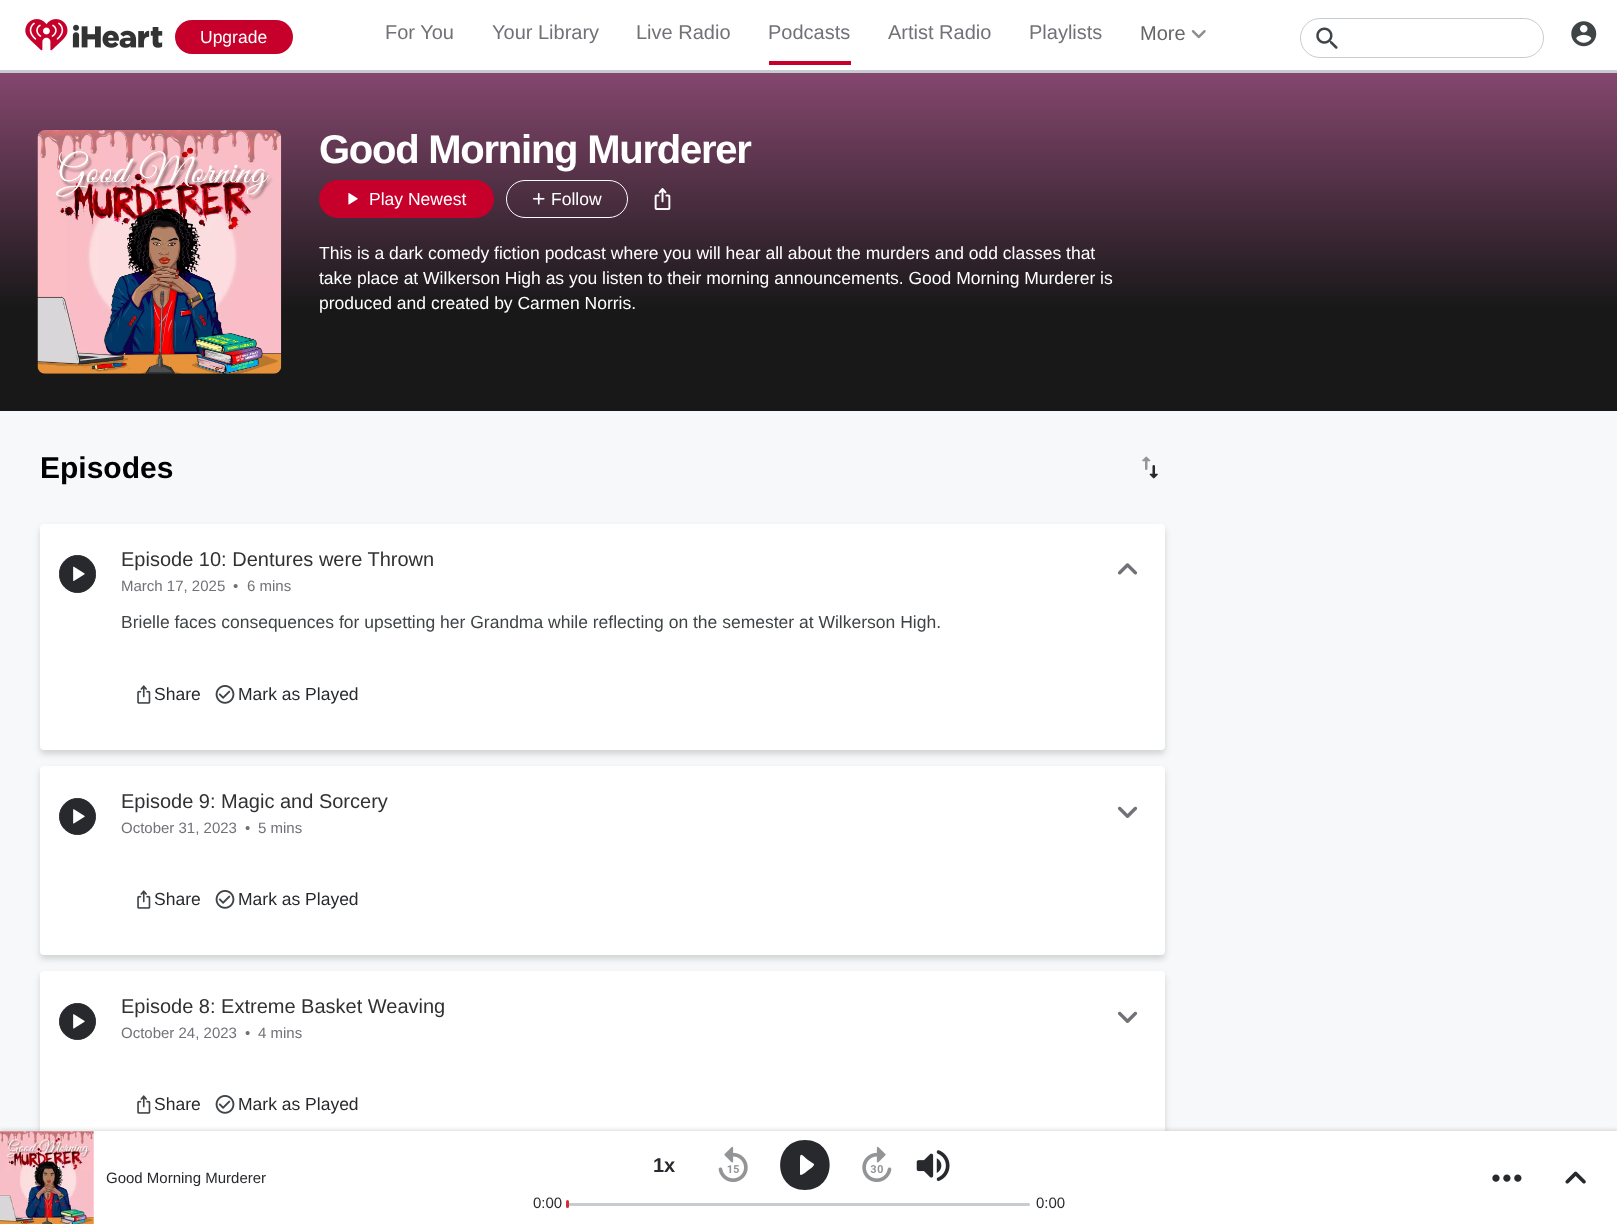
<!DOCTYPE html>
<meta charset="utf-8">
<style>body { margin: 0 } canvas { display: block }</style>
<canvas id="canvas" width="1617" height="1224"></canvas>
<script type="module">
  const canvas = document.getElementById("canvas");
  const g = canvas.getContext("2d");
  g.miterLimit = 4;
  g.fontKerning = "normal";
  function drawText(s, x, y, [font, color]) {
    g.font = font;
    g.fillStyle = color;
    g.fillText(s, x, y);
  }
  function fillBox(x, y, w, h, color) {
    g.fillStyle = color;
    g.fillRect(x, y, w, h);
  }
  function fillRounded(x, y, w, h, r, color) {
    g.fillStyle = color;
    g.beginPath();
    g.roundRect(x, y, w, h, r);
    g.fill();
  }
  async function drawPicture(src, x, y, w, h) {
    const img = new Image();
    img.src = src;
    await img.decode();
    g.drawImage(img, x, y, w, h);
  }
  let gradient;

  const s1 = ["17.5px Liberation Sans", "#FFFFFF"];
  const s2 = ["20px Liberation Sans", "#717277"];
  const s3 = ["20px Liberation Sans", "#666666"];
  const s4 = ["bold 40px Liberation Sans", "#FFFFFF"];
  const s5 = ["bold 30px Liberation Sans", "#000000"];
  const s6 = ["20px Liberation Sans", "#2F3133"];
  const s7 = ["15px Liberation Sans", "#717277"];
  const s8 = ["17.5px Liberation Sans", "#3F4447"];
  const s9 = ["17.5px Liberation Sans", "#27292D"];
  const s10 = ["15px Liberation Sans", "#27292D"];
  const s11 = ["bold 20px Liberation Sans", "#27292D"];

  fillBox(0, 0, 1617, 1224, "#FFFFFF");
  fillBox(0, 70, 1617, 3, "#C5CDD2");
  await drawPicture("pic1.png", 25, 19, 138, 32);
  fillRounded(175, 20, 118, 34, 17, "#C6002B");
  drawText("Upgrade", 200, 43, s1);
  drawText("For You", 385, 39, s2);
  drawText("Your Library", 492, 39, s2);
  drawText("Live Radio", 636, 39, s2);
  drawText("Podcasts", 768, 39, s2);
  fillBox(769, 61, 82, 4, "#C6002B");
  drawText("Artist Radio", 888, 39, s2);
  drawText("Playlists", 1029, 39, s2);
  drawText("More", 1140, 40, s3);
  await drawPicture("pic2.png", 1191, 30, 15, 9);
  g.beginPath();
  g.roundRect(1300.5, 18.5, 243, 39, 19.5);
  g.strokeStyle = "#C5CDD2";
  g.stroke();
  await drawPicture("pic3.png", 1316, 27, 22, 22);
  await drawPicture("pic4.png", 1571, 21, 26, 26);
  gradient = g.createLinearGradient(809, 72, 809, 411);
  gradient.addColorStop(0, "#85476E");
  gradient.addColorStop(0.7, "#181818");
  g.fillStyle = gradient;
  g.fillRect(0, 73, 1617, 338);
  await drawPicture("pic5.png", 37, 130, 245, 244);
  g.letterSpacing = "-1.25px";
  drawText("Good Morning Murderer", 319, 163, s4);
  fillRounded(319, 180, 175, 38, 19, "#C6002B");
  await drawPicture("pic6.png", 348, 193, 10, 12);
  g.letterSpacing = "0px";
  drawText("Play Newest", 369, 205, s1);
  g.beginPath();
  g.roundRect(506.5, 180.5, 121, 37, 18.5);
  g.strokeStyle = "#FFFFFF";
  g.stroke();
  await drawPicture("pic7.png", 533, 193, 12, 12);
  drawText("Follow", 551, 205, s1);
  await drawPicture("pic8.png", 654, 188, 17, 22);
  drawText("This is a dark comedy fiction podcast where you will hear all about the murders and odd classes that", 319, 259, s1);
  drawText("take place at Wilkerson High as you listen to their morning announcements. Good Morning Murderer is", 319, 284, s1);
  drawText("produced and created by Carmen Norris.", 319, 309, s1);
  fillBox(0, 411, 1617, 720, "#F6F8F9");
  drawText("Episodes", 40, 478, s5);
  await drawPicture("pic9.png", 1142, 456, 16, 23);
  g.fillStyle = "rgba(0, 0, 0, 0.15)";
  g.filter = "blur(3px)";
  g.beginPath();
  g.roundRect(40, 528, 1125, 226, 4);
  g.fill();
  g.filter = "none";
  fillRounded(40, 524, 1125, 226, 4, "#FFFFFF");
  g.fillStyle = "#27292D";
  g.beginPath();
  g.roundRect(59.5, 555.5, 36, 37, 18);
  g.fill();
  g.strokeStyle = "#27292D";
  g.stroke();
  await drawPicture("pic10.png", 73, 566, 12, 15);
  drawText("Episode 10: Dentures were Thrown", 121, 566, s6);
  drawText("March 17, 2025", 121, 591, s7);
  drawText("•", 233, 591, s7);
  drawText("6 mins", 247, 591, s7);
  await drawPicture("pic11.png", 1117, 563, 21, 12);
  drawText("Brielle faces consequences for upsetting her Grandma while reflecting on the semester at Wilkerson High.", 121, 628, s8);
  await drawPicture("pic12.png", 137, 685, 14, 19);
  drawText("Share", 154, 700, s9);
  await drawPicture("pic13.png", 215, 685, 20, 19);
  drawText("Mark as Played", 238, 700, s9);
  g.fillStyle = "rgba(0, 0, 0, 0.15)";
  g.filter = "blur(3px)";
  g.beginPath();
  g.roundRect(40, 770, 1125, 189, 4);
  g.fill();
  g.filter = "none";
  fillRounded(40, 766, 1125, 189, 4, "#FFFFFF");
  g.fillStyle = "#27292D";
  g.beginPath();
  g.arc(77.5, 816.5, 18, 0, Math.PI * 2);
  g.fill();
  g.stroke();
  await drawPicture("pic14.png", 73, 809, 12, 15);
  drawText("Episode 9: Magic and Sorcery", 121, 808, s6);
  drawText("October 31, 2023", 121, 833, s7);
  drawText("•", 245, 833, s7);
  drawText("5 mins", 258, 833, s7);
  await drawPicture("pic15.png", 1117, 806, 21, 12);
  await drawPicture("pic12.png", 137, 890, 14, 19);
  drawText("Share", 154, 905, s9);
  await drawPicture("pic13.png", 215, 890, 20, 19);
  drawText("Mark as Played", 238, 905, s9);
  g.fillStyle = "rgba(0, 0, 0, 0.15)";
  g.filter = "blur(3px)";
  g.beginPath();
  g.roundRect(40, 975, 1125, 189, 4);
  g.fill();
  g.filter = "none";
  fillRounded(40, 971, 1125, 189, 4, "#FFFFFF");
  g.fillStyle = "#27292D";
  g.beginPath();
  g.arc(77.5, 1021.5, 18, 0, Math.PI * 2);
  g.fill();
  g.stroke();
  await drawPicture("pic14.png", 73, 1014, 12, 15);
  drawText("Episode 8: Extreme Basket Weaving", 121, 1013, s6);
  drawText("October 24, 2023", 121, 1038, s7);
  drawText("•", 245, 1038, s7);
  drawText("4 mins", 258, 1038, s7);
  await drawPicture("pic15.png", 1117, 1011, 21, 12);
  await drawPicture("pic12.png", 137, 1095, 14, 19);
  drawText("Share", 154, 1110, s9);
  await drawPicture("pic13.png", 215, 1095, 20, 19);
  drawText("Mark as Played", 238, 1110, s9);
  g.fillStyle = "rgba(0, 0, 0, 0.15)";
  g.filter = "blur(2px)";
  g.beginPath();
  g.rect(0, 1130, 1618, 94);
  g.fill();
  g.filter = "none";
  fillBox(0, 1131, 1617, 93, "#FFFFFF");
  await drawPicture("pic16.png", 0, 1131, 94, 93);
  drawText("Good Morning Murderer", 106, 1183, s10);
  drawText("1x", 653, 1172, s11);
  await drawPicture("pic17.png", 718, 1146, 30, 36);
  g.beginPath();
  g.moveTo(805, 1140);
  g.bezierCurveTo(772, 1140, 772, 1190, 805, 1190);
  g.bezierCurveTo(838, 1190, 838, 1140, 805, 1140);
  g.closePath();
  g.moveTo(800, 1174);
  g.lineTo(800, 1159);
  g.bezierCurveTo(800, 1151, 803, 1156, 808, 1160);
  g.lineTo(814, 1164);
  g.bezierCurveTo(815, 1166, 807, 1171, 806, 1172);
  g.bezierCurveTo(806, 1172, 800, 1177, 800, 1174);
  g.closePath();
  g.fill();
  await drawPicture("pic18.png", 862, 1146, 30, 36);
  await drawPicture("pic19.png", 916, 1150, 34, 31);
  drawText("0:00", 533, 1208, s10);
  fillRounded(568, 1203, 462, 3, 1.5, "#C5CDD2");
  fillRounded(566, 1200, 3, 8, 1.5, "#D52D37");
  drawText("0:00", 1036, 1208, s10);
  await drawPicture("pic20.png", 1492, 1174, 30, 8);
  await drawPicture("pic21.png", 1565, 1171, 21, 13);
</script>
